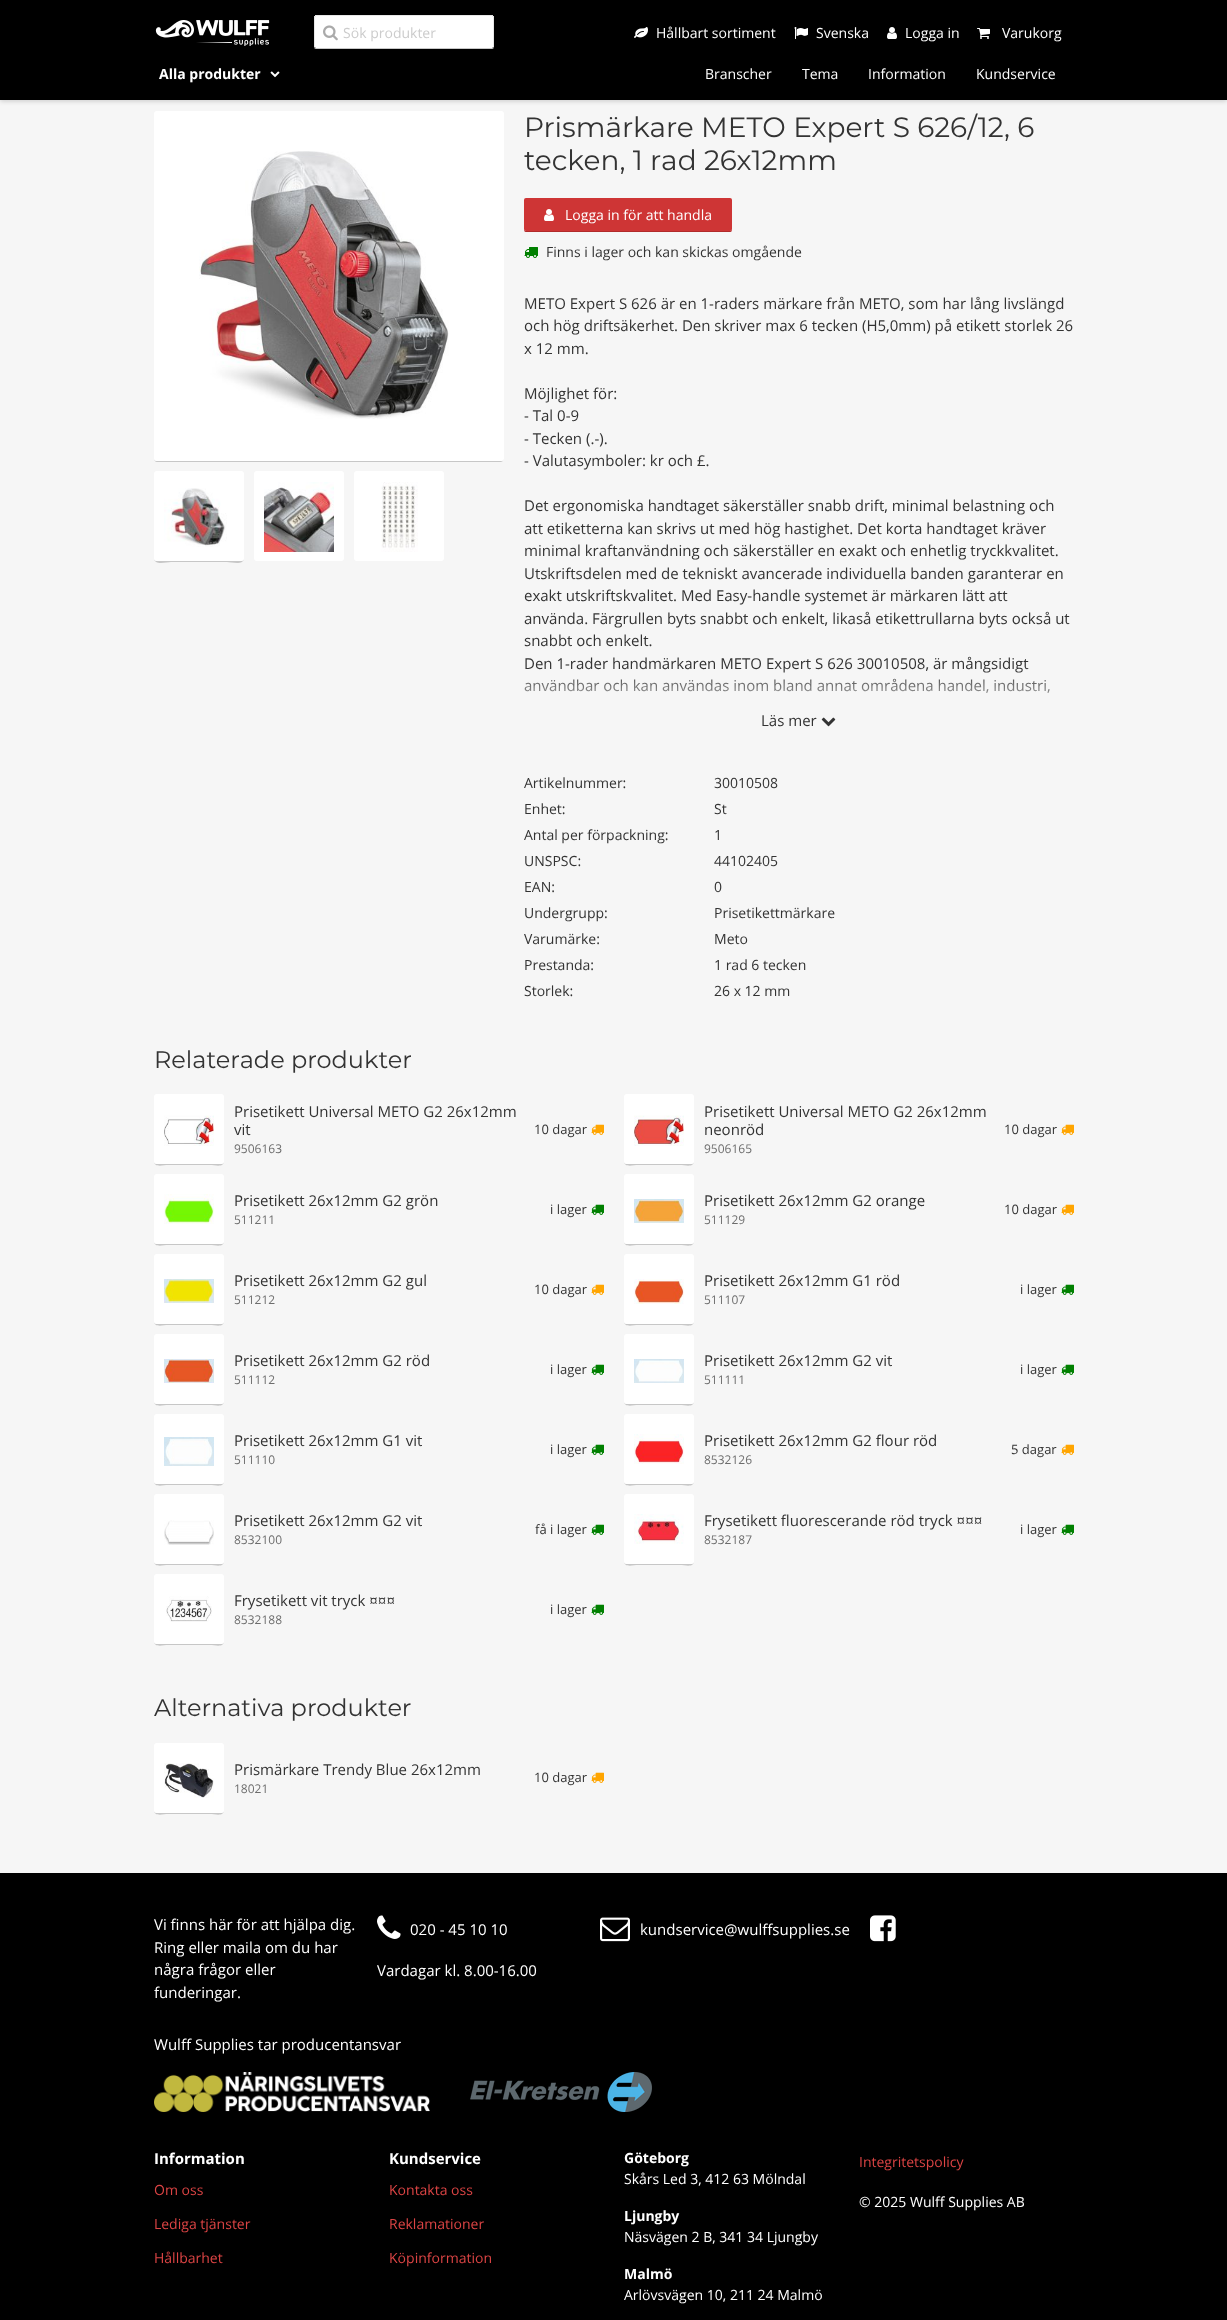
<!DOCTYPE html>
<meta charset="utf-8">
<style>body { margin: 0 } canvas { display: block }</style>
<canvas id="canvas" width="1227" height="2320"></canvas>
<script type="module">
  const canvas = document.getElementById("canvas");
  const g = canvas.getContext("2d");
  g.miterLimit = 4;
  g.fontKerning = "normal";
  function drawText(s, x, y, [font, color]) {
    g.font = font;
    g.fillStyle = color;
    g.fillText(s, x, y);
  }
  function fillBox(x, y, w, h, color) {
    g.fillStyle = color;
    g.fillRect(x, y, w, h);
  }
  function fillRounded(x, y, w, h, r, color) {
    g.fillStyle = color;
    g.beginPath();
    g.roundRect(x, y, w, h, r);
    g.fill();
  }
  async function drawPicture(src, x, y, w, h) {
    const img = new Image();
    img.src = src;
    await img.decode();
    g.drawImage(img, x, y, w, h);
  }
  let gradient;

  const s1 = ["14px Open Sans", "#CCCCCC"];
  const s2 = ["14px Open Sans", "#FFFFFF"];
  const s3 = ["bold 14px Open Sans", "#FFFFFF"];
  const s4 = ["28px Montserrat", "#333333"];
  const s5 = ["14px Open Sans", "#333333"];
  const s6 = ["15px Open Sans", "#333333"];
  const s7 = ["24px Montserrat", "#333333"];
  const s8 = ["12px Open Sans", "#6D6D6D"];
  const s9 = ["13px Open Sans", "#333333"];
  const s10 = ["15px Open Sans", "#FFFFFF"];
  const s11 = ["bold 15px Open Sans", "#FFFFFF"];
  const s12 = ["14px Open Sans", "#DC4444"];

  fillBox(0, 0, 1227, 2320, "#F6F6F6");
  g.fillStyle = "rgba(0, 0, 0, 0.18)";
  g.filter = "blur(2.5px)";
  g.beginPath();
  g.rect(0, 1, 1227, 100);
  g.fill();
  g.filter = "none";
  fillBox(0, 0, 1227, 100, "#000000");
  await drawPicture("pic1.png", 155, 20, 115, 26);
  g.fillStyle = "#C7C7C7";
  g.beginPath();
  g.moveTo(314, 46);
  g.lineTo(314, 47);
  g.bezierCurveTo(314, 48, 315, 49, 316, 49);
  g.lineTo(492, 49);
  g.bezierCurveTo(493, 49, 494, 48, 494, 47);
  g.lineTo(494, 46);
  g.bezierCurveTo(494, 47, 493, 48, 492, 48);
  g.lineTo(316, 48);
  g.bezierCurveTo(315, 48, 314, 47, 314, 46);
  g.closePath();
  g.fill();
  g.fillStyle = "#FFFFFF";
  g.beginPath();
  g.moveTo(316, 16);
  g.lineTo(492, 16);
  g.bezierCurveTo(493, 16, 493, 16, 493, 17);
  g.lineTo(493, 46);
  g.bezierCurveTo(493, 47, 493, 48, 492, 48);
  g.lineTo(316, 48);
  g.bezierCurveTo(315, 48, 315, 47, 315, 46);
  g.lineTo(315, 17);
  g.bezierCurveTo(315, 16, 315, 16, 316, 16);
  g.closePath();
  g.fill();
  await drawPicture("pic2.png", 323, 25, 15, 16);
  fillBox(315, 15, 178, 1, "#E7E7E7");
  fillBox(493, 16, 1, 31, "#E7E7E7");
  fillBox(314, 16, 1, 31, "#E7E7E7");
  drawText("Sök produkter", 343, 38, s1);
  await drawPicture("pic3.png", 634, 27, 14, 11);
  drawText("Hållbart sortiment", 656, 38, s2);
  await drawPicture("pic4.png", 794, 27, 14, 12);
  drawText("Svenska", 816, 38, s2);
  await drawPicture("pic5.png", 887, 27, 10, 12);
  drawText("Logga in", 905, 38, s2);
  await drawPicture("pic6.png", 977, 28, 13, 11);
  drawText("Varukorg", 1002, 38, s2);
  drawText("Alla produkter", 159, 79, s3);
  await drawPicture("pic7.png", 270, 71, 10, 7);
  drawText("Branscher", 705, 79, s2);
  drawText("Tema", 802, 79, s2);
  drawText("Information", 868, 79, s2);
  drawText("Kundservice", 976, 79, s2);
  g.fillStyle = "#C7C7C7";
  g.beginPath();
  g.moveTo(154, 458);
  g.bezierCurveTo(154, 460, 155, 462, 157, 462);
  g.lineTo(501, 462);
  g.lineTo(503, 461);
  g.lineTo(504, 458);
  g.bezierCurveTo(504, 460, 503, 461, 501, 461);
  g.lineTo(157, 461);
  g.bezierCurveTo(155, 461, 154, 460, 154, 458);
  g.closePath();
  g.fill();
  fillRounded(154, 111, 350, 350, 3, "#FFFFFF");
  await drawPicture("pic8.png", 199, 151, 250, 268);
  g.fillStyle = "#C7C7C7";
  g.beginPath();
  g.moveTo(154, 558);
  g.bezierCurveTo(154, 566, 167, 562, 171, 562);
  g.lineTo(227, 562);
  g.bezierCurveTo(231, 562, 244, 566, 244, 558);
  g.bezierCurveTo(244, 560, 243, 561, 241, 561);
  g.lineTo(157, 561);
  g.bezierCurveTo(155, 561, 154, 560, 154, 558);
  g.closePath();
  g.fill();
  fillRounded(154, 471, 90, 90, 3, "#FFFFFF");
  await drawPicture("pic9.png", 164, 488, 63, 59);
  fillRounded(254, 471, 90, 90, 3, "#FFFFFF");
  await drawPicture("pic10.png", 264, 482, 70, 70);
  fillRounded(354, 471, 90, 90, 3, "#FFFFFF");
  await drawPicture("pic11.png", 381, 482, 37, 70);
  drawText("Prismärkare METO Expert S 626/12, 6", 524, 137, s4);
  drawText("tecken, 1 rad 26x12mm", 524, 170, s4);
  g.fillStyle = "#B12B2B";
  g.beginPath();
  g.moveTo(524, 229);
  g.bezierCurveTo(524, 230, 524, 232, 526, 232);
  g.lineTo(730, 232);
  g.bezierCurveTo(732, 232, 732, 230, 732, 229);
  g.bezierCurveTo(732, 230, 731, 231, 730, 231);
  g.lineTo(526, 231);
  g.bezierCurveTo(525, 231, 524, 230, 524, 229);
  g.closePath();
  g.fill();
  fillRounded(524, 198, 208, 33, 2, "#CE3535");
  await drawPicture("pic12.png", 544, 209, 10, 12);
  drawText("Logga in för att handla", 565, 220, s2);
  await drawPicture("pic13.png", 524, 247, 14, 11);
  drawText("Finns i lager och kan skickas omgående", 546, 257, s5);
  drawText("METO Expert S 626 är en 1-raders märkare från METO, som har lång livslängd", 524, 309, s6);
  drawText("och hög driftsäkerhet. Den skriver max 6 tecken (H5,0mm) på etikett storlek 26", 524, 331, s6);
  drawText("x 12 mm.", 524, 354, s6);
  drawText("Möjlighet för:", 524, 399, s6);
  drawText("- Tal 0-9", 524, 421, s6);
  drawText("- Tecken (.-).", 524, 444, s6);
  drawText("- Valutasymboler: kr och £.", 524, 466, s6);
  drawText("Det ergonomiska handtaget säkerställer snabb drift, minimal belastning och", 524, 511, s6);
  drawText("att etiketterna kan skrivs ut med hög hastighet. Det korta handtaget kräver", 524, 534, s6);
  drawText("minimal kraftanvändning och säkerställer en exakt och enhetlig tryckkvalitet.", 524, 556, s6);
  drawText("Utskriftsdelen med de tekniskt avancerade individuella banden garanterar en", 524, 579, s6);
  drawText("exakt utskriftskvalitet. Med Easy-handle systemet är märkaren lätt att", 524, 601, s6);
  drawText("använda. Färgrullen byts snabbt och enkelt, likaså etikettrullarna byts också ut", 524, 624, s6);
  drawText("snabbt och enkelt.", 524, 646, s6);
  drawText("Den 1-rader handmärkaren METO Expert S 626 30010508, är mångsidigt", 524, 669, s6);
  drawText("användbar och kan användas inom bland annat områdena handel, industri,", 524, 691, s6);
  gradient = g.createLinearGradient(799, 669, 799, 742);
  gradient.addColorStop(0, "rgba(246, 246, 246, 0)");
  gradient.addColorStop(0.7, "#F6F6F6");
  g.fillStyle = gradient;
  g.fillRect(524, 670, 526, 23);
  drawText("Läs mer", 761, 726, s6);
  await drawPicture("pic14.png", 821, 717, 15, 10);
  drawText("Artikelnummer:", 524, 788, s5);
  drawText("30010508", 714, 788, s5);
  drawText("Enhet:", 524, 814, s5);
  drawText("St", 714, 814, s5);
  drawText("Antal per förpackning:", 524, 840, s5);
  drawText("1", 714, 840, s5);
  drawText("UNSPSC:", 524, 866, s5);
  drawText("44102405", 714, 866, s5);
  drawText("EAN:", 524, 892, s5);
  drawText("0", 714, 892, s5);
  drawText("Undergrupp:", 524, 918, s5);
  drawText("Prisetikettmärkare", 714, 918, s5);
  drawText("Varumärke:", 524, 944, s5);
  drawText("Meto", 714, 944, s5);
  drawText("Prestanda:", 524, 970, s5);
  drawText("1 rad 6 tecken", 714, 970, s5);
  drawText("Storlek:", 524, 996, s5);
  drawText("26 x 12 mm", 714, 996, s5);
  drawText("Relaterade produkter", 154, 1068, s7);
  g.fillStyle = "#C7C7C7";
  g.beginPath();
  g.moveTo(154, 1161);
  g.bezierCurveTo(154, 1168, 163, 1165, 168, 1165);
  g.lineTo(210, 1165);
  g.bezierCurveTo(215, 1165, 224, 1168, 224, 1161);
  g.bezierCurveTo(224, 1163, 223, 1164, 221, 1164);
  g.lineTo(157, 1164);
  g.bezierCurveTo(155, 1164, 154, 1163, 154, 1161);
  g.closePath();
  g.fill();
  fillRounded(154, 1094, 70, 70, 3, "#FFFFFF");
  await drawPicture("pic15.png", 164, 1115, 50, 31);
  drawText("Prisetikett Universal METO G2 26x12mm", 234, 1117, s6);
  drawText("vit", 234, 1135, s6);
  drawText("9506163", 234, 1153, s8);
  drawText("10 dagar", 534, 1134, s9);
  await drawPicture("pic16.png", 591, 1124, 13, 11);
  g.fillStyle = "#C7C7C7";
  g.beginPath();
  g.moveTo(624, 1161);
  g.bezierCurveTo(624, 1168, 633, 1165, 638, 1165);
  g.lineTo(680, 1165);
  g.bezierCurveTo(685, 1165, 694, 1168, 694, 1161);
  g.bezierCurveTo(694, 1163, 693, 1164, 691, 1164);
  g.lineTo(627, 1164);
  g.bezierCurveTo(625, 1164, 624, 1163, 624, 1161);
  g.closePath();
  g.fill();
  fillRounded(624, 1094, 70, 70, 3, "#FFFFFF");
  await drawPicture("pic17.png", 634, 1115, 50, 31);
  drawText("Prisetikett Universal METO G2 26x12mm", 704, 1117, s6);
  drawText("neonröd", 704, 1135, s6);
  drawText("9506165", 704, 1153, s8);
  drawText("10 dagar", 1004, 1134, s9);
  await drawPicture("pic16.png", 1061, 1124, 13, 11);
  g.fillStyle = "#C7C7C7";
  g.beginPath();
  g.moveTo(154, 1241);
  g.bezierCurveTo(154, 1248, 163, 1245, 168, 1245);
  g.lineTo(210, 1245);
  g.bezierCurveTo(215, 1245, 224, 1248, 224, 1241);
  g.bezierCurveTo(224, 1243, 223, 1244, 221, 1244);
  g.lineTo(157, 1244);
  g.bezierCurveTo(155, 1244, 154, 1243, 154, 1241);
  g.closePath();
  g.fill();
  fillRounded(154, 1174, 70, 70, 3, "#FFFFFF");
  await drawPicture("pic18.png", 164, 1194, 50, 30);
  drawText("Prisetikett 26x12mm G2 grön", 234, 1206, s6);
  drawText("511211", 234, 1224, s8);
  drawText("i lager", 550, 1214, s9);
  await drawPicture("pic19.png", 591, 1204, 13, 11);
  g.fillStyle = "#C7C7C7";
  g.beginPath();
  g.moveTo(624, 1241);
  g.bezierCurveTo(624, 1248, 633, 1245, 638, 1245);
  g.lineTo(680, 1245);
  g.bezierCurveTo(685, 1245, 694, 1248, 694, 1241);
  g.bezierCurveTo(694, 1243, 693, 1244, 691, 1244);
  g.lineTo(627, 1244);
  g.bezierCurveTo(625, 1244, 624, 1243, 624, 1241);
  g.closePath();
  g.fill();
  fillRounded(624, 1174, 70, 70, 3, "#FFFFFF");
  await drawPicture("pic20.png", 634, 1199, 50, 24);
  drawText("Prisetikett 26x12mm G2 orange", 704, 1206, s6);
  drawText("511129", 704, 1224, s8);
  drawText("10 dagar", 1004, 1214, s9);
  await drawPicture("pic16.png", 1061, 1204, 13, 11);
  g.fillStyle = "#C7C7C7";
  g.beginPath();
  g.moveTo(154, 1321);
  g.bezierCurveTo(154, 1328, 163, 1325, 168, 1325);
  g.lineTo(210, 1325);
  g.bezierCurveTo(215, 1325, 224, 1328, 224, 1321);
  g.bezierCurveTo(224, 1323, 223, 1324, 221, 1324);
  g.lineTo(157, 1324);
  g.bezierCurveTo(155, 1324, 154, 1323, 154, 1321);
  g.closePath();
  g.fill();
  fillRounded(154, 1254, 70, 70, 3, "#FFFFFF");
  await drawPicture("pic21.png", 164, 1279, 50, 24);
  drawText("Prisetikett 26x12mm G2 gul", 234, 1286, s6);
  drawText("511212", 234, 1304, s8);
  drawText("10 dagar", 534, 1294, s9);
  await drawPicture("pic16.png", 591, 1284, 13, 11);
  g.fillStyle = "#C7C7C7";
  g.beginPath();
  g.moveTo(624, 1321);
  g.bezierCurveTo(624, 1328, 633, 1325, 638, 1325);
  g.lineTo(680, 1325);
  g.bezierCurveTo(685, 1325, 694, 1328, 694, 1321);
  g.bezierCurveTo(694, 1323, 693, 1324, 691, 1324);
  g.lineTo(627, 1324);
  g.bezierCurveTo(625, 1324, 624, 1323, 624, 1321);
  g.closePath();
  g.fill();
  fillRounded(624, 1254, 70, 70, 3, "#FFFFFF");
  await drawPicture("pic22.png", 634, 1279, 50, 25);
  drawText("Prisetikett 26x12mm G1 röd", 704, 1286, s6);
  drawText("511107", 704, 1304, s8);
  drawText("i lager", 1020, 1294, s9);
  await drawPicture("pic19.png", 1061, 1284, 13, 11);
  g.fillStyle = "#C7C7C7";
  g.beginPath();
  g.moveTo(154, 1401);
  g.bezierCurveTo(154, 1408, 163, 1405, 168, 1405);
  g.lineTo(210, 1405);
  g.bezierCurveTo(215, 1405, 224, 1408, 224, 1401);
  g.bezierCurveTo(224, 1403, 223, 1404, 221, 1404);
  g.lineTo(157, 1404);
  g.bezierCurveTo(155, 1404, 154, 1403, 154, 1401);
  g.closePath();
  g.fill();
  fillRounded(154, 1334, 70, 70, 3, "#FFFFFF");
  await drawPicture("pic23.png", 164, 1359, 50, 24);
  drawText("Prisetikett 26x12mm G2 röd", 234, 1366, s6);
  drawText("511112", 234, 1384, s8);
  drawText("i lager", 550, 1374, s9);
  await drawPicture("pic19.png", 591, 1364, 13, 11);
  g.fillStyle = "#C7C7C7";
  g.beginPath();
  g.moveTo(624, 1401);
  g.bezierCurveTo(624, 1408, 633, 1405, 638, 1405);
  g.lineTo(680, 1405);
  g.bezierCurveTo(685, 1405, 694, 1408, 694, 1401);
  g.bezierCurveTo(694, 1403, 693, 1404, 691, 1404);
  g.lineTo(627, 1404);
  g.bezierCurveTo(625, 1404, 624, 1403, 624, 1401);
  g.closePath();
  g.fill();
  fillRounded(624, 1334, 70, 70, 3, "#FFFFFF");
  await drawPicture("pic24.png", 634, 1359, 50, 24);
  drawText("Prisetikett 26x12mm G2 vit", 704, 1366, s6);
  drawText("511111", 704, 1384, s8);
  drawText("i lager", 1020, 1374, s9);
  await drawPicture("pic19.png", 1061, 1364, 13, 11);
  g.fillStyle = "#C7C7C7";
  g.beginPath();
  g.moveTo(154, 1481);
  g.bezierCurveTo(154, 1488, 163, 1485, 168, 1485);
  g.lineTo(210, 1485);
  g.bezierCurveTo(215, 1485, 224, 1488, 224, 1481);
  g.bezierCurveTo(224, 1483, 223, 1484, 221, 1484);
  g.lineTo(157, 1484);
  g.bezierCurveTo(155, 1484, 154, 1483, 154, 1481);
  g.closePath();
  g.fill();
  fillRounded(154, 1414, 70, 70, 3, "#FFFFFF");
  await drawPicture("pic25.png", 164, 1437, 50, 29);
  drawText("Prisetikett 26x12mm G1 vit", 234, 1446, s6);
  drawText("511110", 234, 1464, s8);
  drawText("i lager", 550, 1454, s9);
  await drawPicture("pic19.png", 591, 1444, 13, 11);
  g.fillStyle = "#C7C7C7";
  g.beginPath();
  g.moveTo(624, 1481);
  g.bezierCurveTo(624, 1488, 633, 1485, 638, 1485);
  g.lineTo(680, 1485);
  g.bezierCurveTo(685, 1485, 694, 1488, 694, 1481);
  g.bezierCurveTo(694, 1483, 693, 1484, 691, 1484);
  g.lineTo(627, 1484);
  g.bezierCurveTo(625, 1484, 624, 1483, 624, 1481);
  g.closePath();
  g.fill();
  fillRounded(624, 1414, 70, 70, 3, "#FFFFFF");
  await drawPicture("pic26.png", 634, 1434, 50, 30);
  drawText("Prisetikett 26x12mm G2 flour röd", 704, 1446, s6);
  drawText("8532126", 704, 1464, s8);
  drawText("5 dagar", 1011, 1454, s9);
  await drawPicture("pic16.png", 1061, 1444, 13, 11);
  g.fillStyle = "#C7C7C7";
  g.beginPath();
  g.moveTo(154, 1561);
  g.bezierCurveTo(154, 1568, 163, 1565, 168, 1565);
  g.lineTo(210, 1565);
  g.bezierCurveTo(215, 1565, 224, 1568, 224, 1561);
  g.bezierCurveTo(224, 1563, 223, 1564, 221, 1564);
  g.lineTo(157, 1564);
  g.bezierCurveTo(155, 1564, 154, 1563, 154, 1561);
  g.closePath();
  g.fill();
  fillRounded(154, 1494, 70, 70, 3, "#FFFFFF");
  await drawPicture("pic27.png", 164, 1520, 50, 25);
  drawText("Prisetikett 26x12mm G2 vit", 234, 1526, s6);
  drawText("8532100", 234, 1544, s8);
  drawText("få i lager", 535, 1534, s9);
  await drawPicture("pic19.png", 591, 1524, 13, 11);
  g.fillStyle = "#C7C7C7";
  g.beginPath();
  g.moveTo(624, 1561);
  g.bezierCurveTo(624, 1568, 633, 1565, 638, 1565);
  g.lineTo(680, 1565);
  g.bezierCurveTo(685, 1565, 694, 1568, 694, 1561);
  g.bezierCurveTo(694, 1563, 693, 1564, 691, 1564);
  g.lineTo(627, 1564);
  g.bezierCurveTo(625, 1564, 624, 1563, 624, 1561);
  g.closePath();
  g.fill();
  fillRounded(624, 1494, 70, 70, 3, "#FFFFFF");
  await drawPicture("pic28.png", 634, 1514, 50, 30);
  drawText("Frysetikett fluorescerande röd tryck ¤¤¤", 704, 1526, s6);
  drawText("8532187", 704, 1544, s8);
  drawText("i lager", 1020, 1534, s9);
  await drawPicture("pic19.png", 1061, 1524, 13, 11);
  g.fillStyle = "#C7C7C7";
  g.beginPath();
  g.moveTo(154, 1641);
  g.bezierCurveTo(154, 1648, 163, 1645, 168, 1645);
  g.lineTo(210, 1645);
  g.bezierCurveTo(215, 1645, 224, 1648, 224, 1641);
  g.bezierCurveTo(224, 1643, 223, 1644, 221, 1644);
  g.lineTo(157, 1644);
  g.bezierCurveTo(155, 1644, 154, 1643, 154, 1641);
  g.closePath();
  g.fill();
  fillRounded(154, 1574, 70, 70, 3, "#FFFFFF");
  await drawPicture("pic29.png", 166, 1596, 46, 26);
  drawText("Frysetikett vit tryck ¤¤¤", 234, 1606, s6);
  drawText("8532188", 234, 1624, s8);
  drawText("i lager", 550, 1614, s9);
  await drawPicture("pic19.png", 591, 1604, 13, 11);
  drawText("Alternativa produkter", 154, 1716, s7);
  g.fillStyle = "#C7C7C7";
  g.beginPath();
  g.moveTo(154, 1810);
  g.bezierCurveTo(154, 1817, 163, 1814, 168, 1814);
  g.lineTo(210, 1814);
  g.bezierCurveTo(215, 1814, 224, 1817, 224, 1810);
  g.bezierCurveTo(224, 1812, 223, 1813, 221, 1813);
  g.lineTo(157, 1813);
  g.bezierCurveTo(155, 1813, 154, 1812, 154, 1810);
  g.closePath();
  g.fill();
  fillRounded(154, 1743, 70, 70, 3, "#FFFFFF");
  await drawPicture("pic30.png", 164, 1763, 50, 35);
  drawText("Prismärkare Trendy Blue 26x12mm", 234, 1775, s6);
  drawText("18021", 234, 1793, s8);
  drawText("10 dagar", 534, 1782, s9);
  await drawPicture("pic16.png", 591, 1772, 13, 11);
  fillBox(0, 1873, 1227, 447, "#000000");
  drawText("Vi finns här för att hjälpa dig.", 154, 1930, s10);
  drawText("Ring eller maila om du har", 154, 1953, s10);
  drawText("några frågor eller", 154, 1975, s10);
  drawText("funderingar.", 154, 1998, s10);
  await drawPicture("pic31.png", 377, 1915, 24, 24);
  drawText("020 - 45 10 10", 410, 1935, s10);
  drawText("Vardagar kl. 8.00-16.00", 377, 1976, s10);
  await drawPicture("pic32.png", 600, 1917, 30, 25);
  drawText("kundservice@wulffsupplies.se", 640, 1935, s10);
  await drawPicture("pic33.png", 870, 1915, 26, 27);
  drawText("Wulff Supplies tar producentansvar", 154, 2050, s10);
  await drawPicture("pic34.png", 154, 2072, 276, 40);
  await drawPicture("pic35.png", 470, 2072, 182, 40);
  drawText("Information", 154, 2164, s11);
  drawText("Om oss", 154, 2195, s12);
  drawText("Lediga tjänster", 154, 2229, s12);
  drawText("Hållbarhet", 154, 2263, s12);
  drawText("Kundservice", 389, 2164, s11);
  drawText("Kontakta oss", 389, 2195, s12);
  drawText("Reklamationer", 389, 2229, s12);
  drawText("Köpinformation", 389, 2263, s12);
  drawText("Göteborg", 624, 2163, s3);
  drawText("Skårs Led 3, 412 63 Mölndal", 624, 2184, s2);
  drawText("Ljungby", 624, 2221, s3);
  drawText("Näsvägen 2 B, 341 34 Ljungby", 624, 2242, s2);
  drawText("Malmö", 624, 2279, s3);
  drawText("Arlövsvägen 10, 211 24 Malmö", 624, 2300, s2);
  drawText("Integritetspolicy", 859, 2167, s12);
  drawText("© 2025 Wulff Supplies AB", 859, 2207, s2);
</script>
